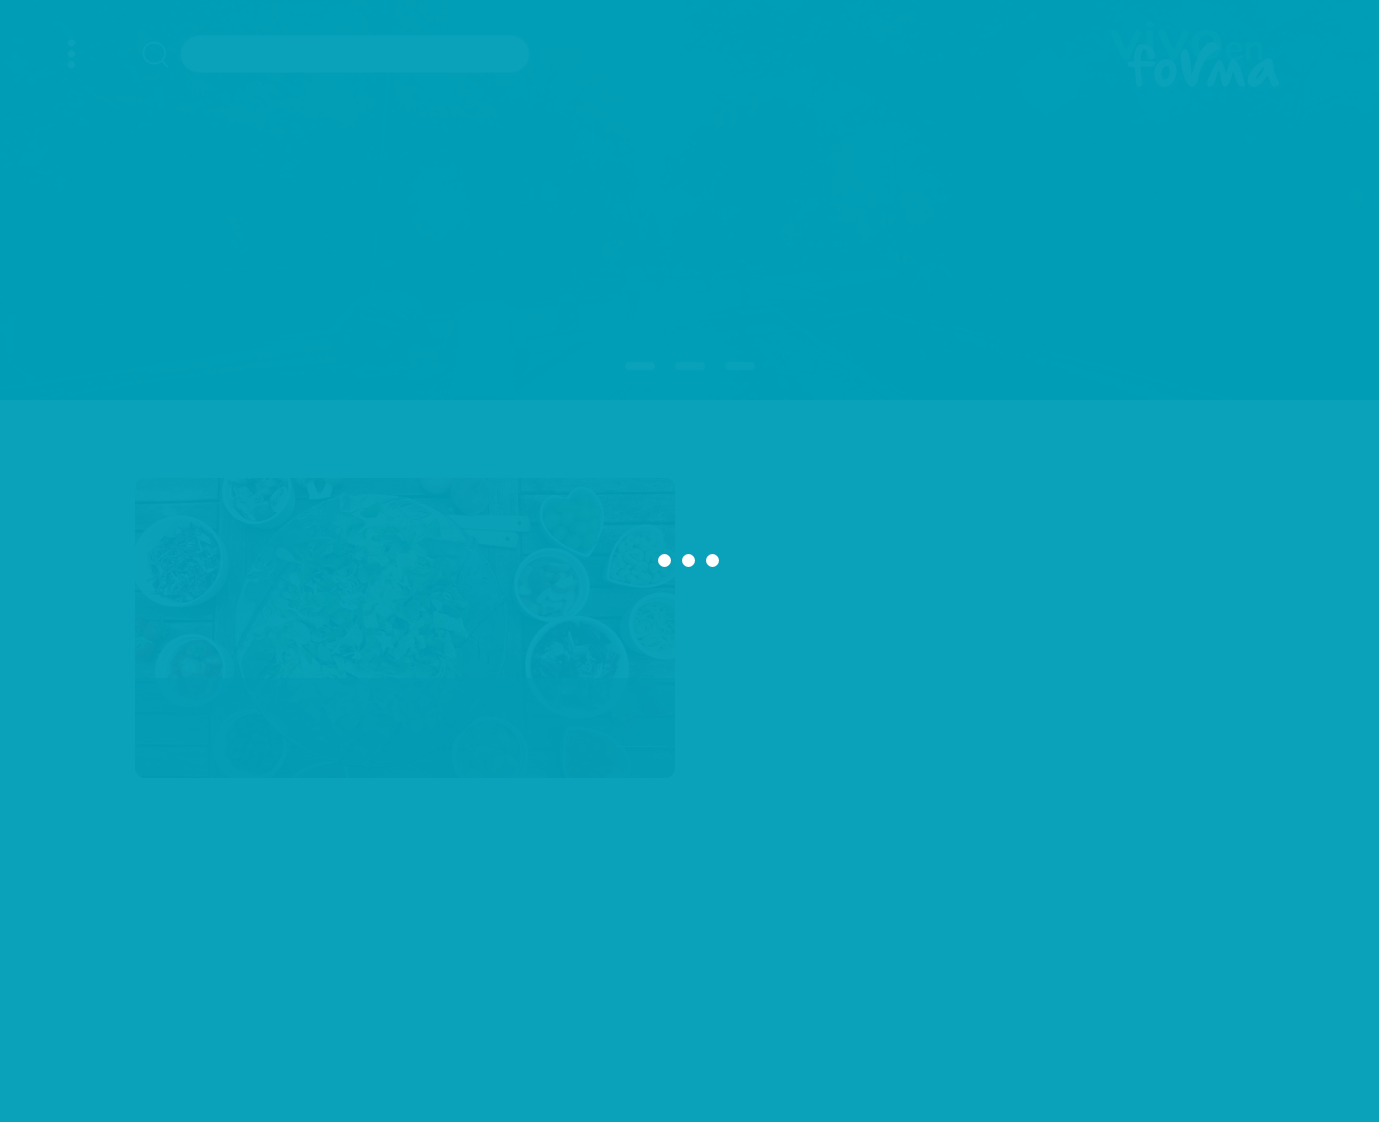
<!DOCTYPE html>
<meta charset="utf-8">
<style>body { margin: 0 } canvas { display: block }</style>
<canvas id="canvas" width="1379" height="1122"></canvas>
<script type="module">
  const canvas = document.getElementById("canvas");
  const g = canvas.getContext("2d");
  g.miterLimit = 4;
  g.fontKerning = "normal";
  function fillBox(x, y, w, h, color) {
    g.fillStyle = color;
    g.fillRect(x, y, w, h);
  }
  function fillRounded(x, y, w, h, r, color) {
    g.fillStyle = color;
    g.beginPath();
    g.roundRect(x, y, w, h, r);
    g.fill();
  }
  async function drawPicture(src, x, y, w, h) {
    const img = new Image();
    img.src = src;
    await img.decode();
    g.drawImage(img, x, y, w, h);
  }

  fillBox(0, 0, 1379, 1122, "#0AA2BA");
  await drawPicture("pic1.png", 0, 0, 1379, 400);
  fillRounded(625, 362, 30, 8, 4, "#0AA2BA");
  fillRounded(675, 362, 30, 8, 4, "#08A1B9");
  fillRounded(725, 362, 30, 8, 4, "rgba(10, 162, 186, 0.75)");
  await drawPicture("pic2.png", 67, 39, 9, 30);
  g.beginPath();
  g.moveTo(165, 53);
  g.bezierCurveTo(165, 67, 143.5, 67, 143.5, 53);
  g.bezierCurveTo(143.5, 39, 165, 39, 165, 53);
  g.closePath();
  g.moveTo(167.5, 66.5);
  g.lineTo(162, 60.5);
  g.strokeStyle = "#0AA2BA";
  g.lineWidth = 1.9;
  g.lineCap = "round";
  g.lineJoin = "round";
  g.stroke();
  g.fillStyle = "#0AA2BA";
  g.beginPath();
  g.roundRect(180.5, 35.5, 349, 37, 18.5);
  g.fill();
  g.strokeStyle = "#08A0B8";
  g.lineWidth = 1;
  g.lineJoin = "miter";
  g.stroke();
  await drawPicture("pic3.png", 1110, 20, 170, 67);
  await drawPicture("pic4.png", 135, 478, 540, 300);
  g.fillStyle = "rgba(3, 155, 180, 0.65)";
  g.beginPath();
  g.roundRect(135, 678, 540, 100, [0, 0, 10, 10]);
  g.fill();
  fillBox(617, 746, 50, 1, "rgba(10, 162, 186, 0.5)");
  g.fillStyle = "#FFFFFF";
  g.beginPath();
  g.arc(664.5, 560.5, 6.5, 0, Math.PI * 2);
  g.fill();
  g.beginPath();
  g.arc(688.5, 560.5, 6.5, 0, Math.PI * 2);
  g.fill();
  g.beginPath();
  g.arc(712.5, 560.5, 6.5, 0, Math.PI * 2);
  g.fill();
</script>
